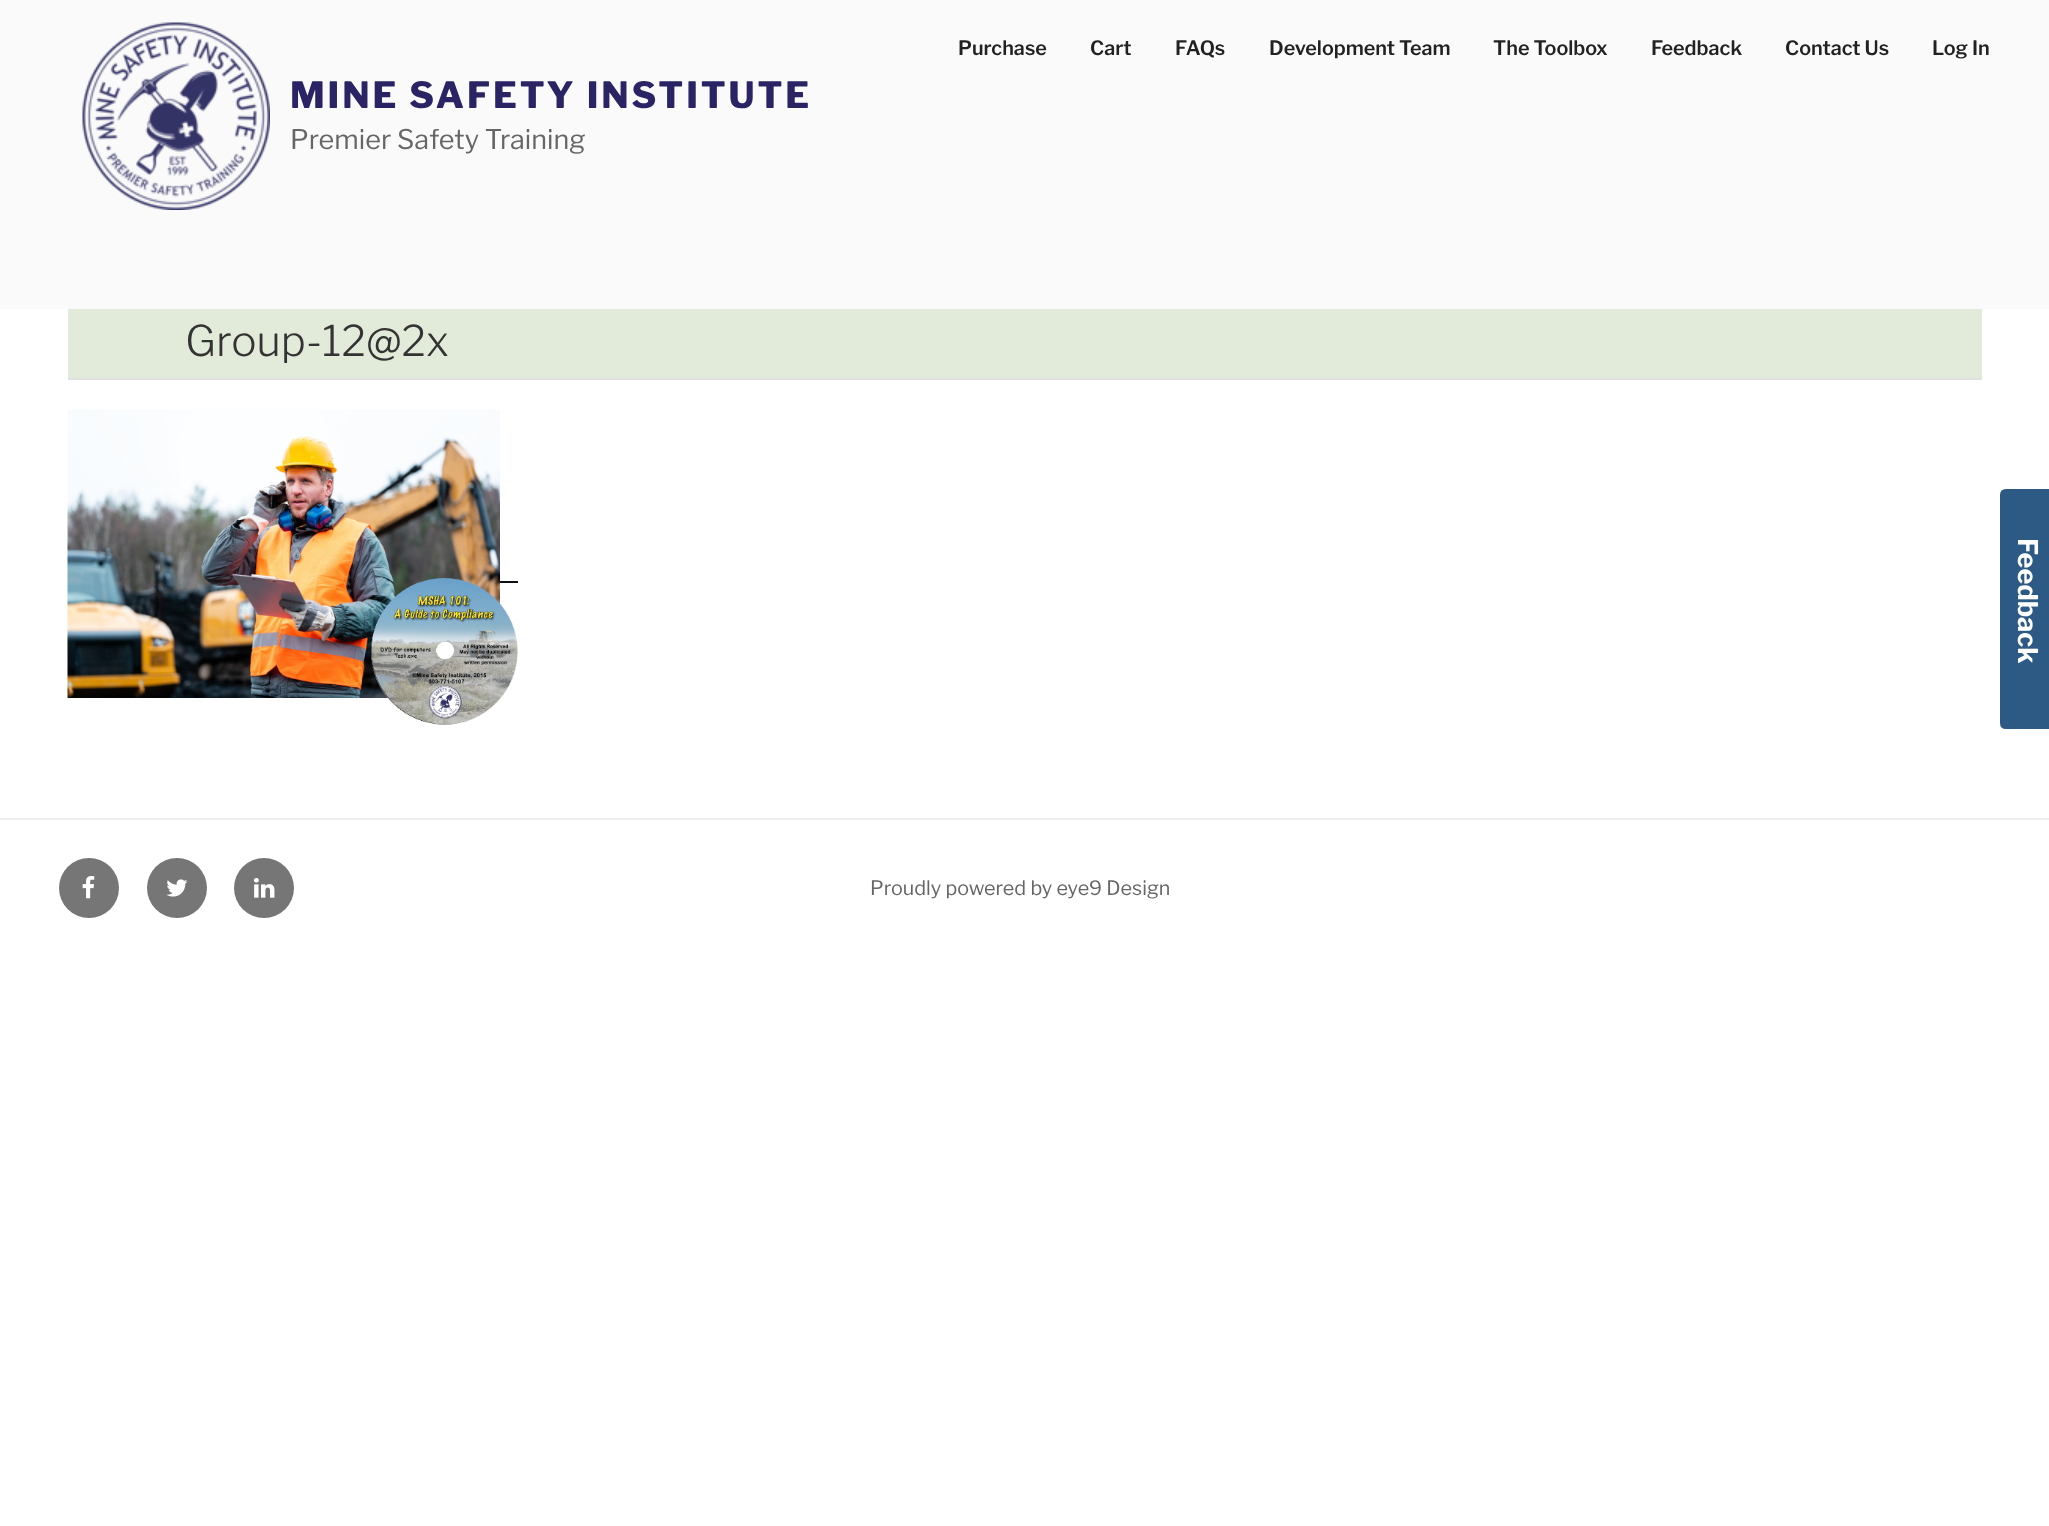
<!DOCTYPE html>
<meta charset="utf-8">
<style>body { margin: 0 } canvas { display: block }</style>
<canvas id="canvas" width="2049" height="1526"></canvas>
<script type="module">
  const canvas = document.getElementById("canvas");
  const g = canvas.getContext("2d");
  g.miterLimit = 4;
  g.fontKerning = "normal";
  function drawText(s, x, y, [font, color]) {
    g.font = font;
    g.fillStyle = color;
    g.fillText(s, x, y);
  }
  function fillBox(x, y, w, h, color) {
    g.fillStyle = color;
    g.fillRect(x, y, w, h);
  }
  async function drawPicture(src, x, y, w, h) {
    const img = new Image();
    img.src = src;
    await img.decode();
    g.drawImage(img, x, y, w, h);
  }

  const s1 = ["600 19.75px Libre Franklin", "#222222"];
  const s2 = ["800 36px Libre Franklin", "#2A2364"];
  const s3 = ["27px Libre Franklin", "#666666"];
  const s4 = ["300 42.25px Libre Franklin", "#333333"];
  const s5 = ["19.75px Libre Franklin", "#666666"];

  fillBox(0, 0, 2049, 1526, "#FFFFFF");
  fillBox(0, 0, 2049, 309, "#FAFAFA");
  drawText("Purchase", 958, 55, s1);
  drawText("Cart", 1090, 55, s1);
  drawText("FAQs", 1175, 55, s1);
  drawText("Development Team", 1269, 55, s1);
  drawText("The Toolbox", 1493, 55, s1);
  drawText("Feedback", 1651, 55, s1);
  drawText("Contact Us", 1785, 55, s1);
  drawText("Log In", 1932, 55, s1);
  await drawPicture("pic1.png", 82, 22, 188, 188);
  g.letterSpacing = "2.9px";
  drawText("MINE SAFETY INSTITUTE", 290, 108, s2);
  g.letterSpacing = "0px";
  drawText("Premier Safety Training", 290, 149, s3);
  fillBox(68, 309, 1914, 69, "#E2EBDA");
  fillBox(68, 378, 1914, 2, "#E1E1E1");
  drawText("Group-12@2x", 185, 356, s4);
  fillBox(500, 581, 18, 2, "#0F0F0F");
  await drawPicture("pic2.png", 67, 409, 451, 316);
  fillBox(0, 818, 2049, 2, "#EEEEEE");
  g.fillStyle = "#767676";
  g.beginPath();
  g.arc(89, 888, 30, 0, Math.PI * 2);
  g.fill();
  await drawPicture("pic3.png", 82, 876, 13, 23);
  g.beginPath();
  g.arc(177, 888, 30, 0, Math.PI * 2);
  g.fill();
  await drawPicture("pic4.png", 166, 879, 22, 18);
  g.beginPath();
  g.arc(264, 888, 30, 0, Math.PI * 2);
  g.fill();
  await drawPicture("pic5.png", 253, 878, 22, 20);
  drawText("Proudly powered by eye9 Design", 870, 895, s5);
  g.fillStyle = "#2C5A85";
  g.beginPath();
  g.moveTo(2006, 490);
  g.lineTo(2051, 490);
  g.lineTo(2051, 728);
  g.lineTo(2006, 728);
  g.bezierCurveTo(2003, 728, 2001, 726, 2001, 723);
  g.lineTo(2001, 495);
  g.bezierCurveTo(2001, 492, 2003, 490, 2006, 490);
  g.closePath();
  g.fill();
  g.strokeStyle = "#2C5A85";
  g.lineWidth = 2;
  g.stroke();
  g.font = "bold 27px Libre Franklin";
  g.fillStyle = "#FFFFFF";
  g.save();
  g.translate(2018, 538);
  g.rotate(90 * Math.PI / 180);
  g.fillText("Feedback", 0, 0);
  g.restore();
</script>
